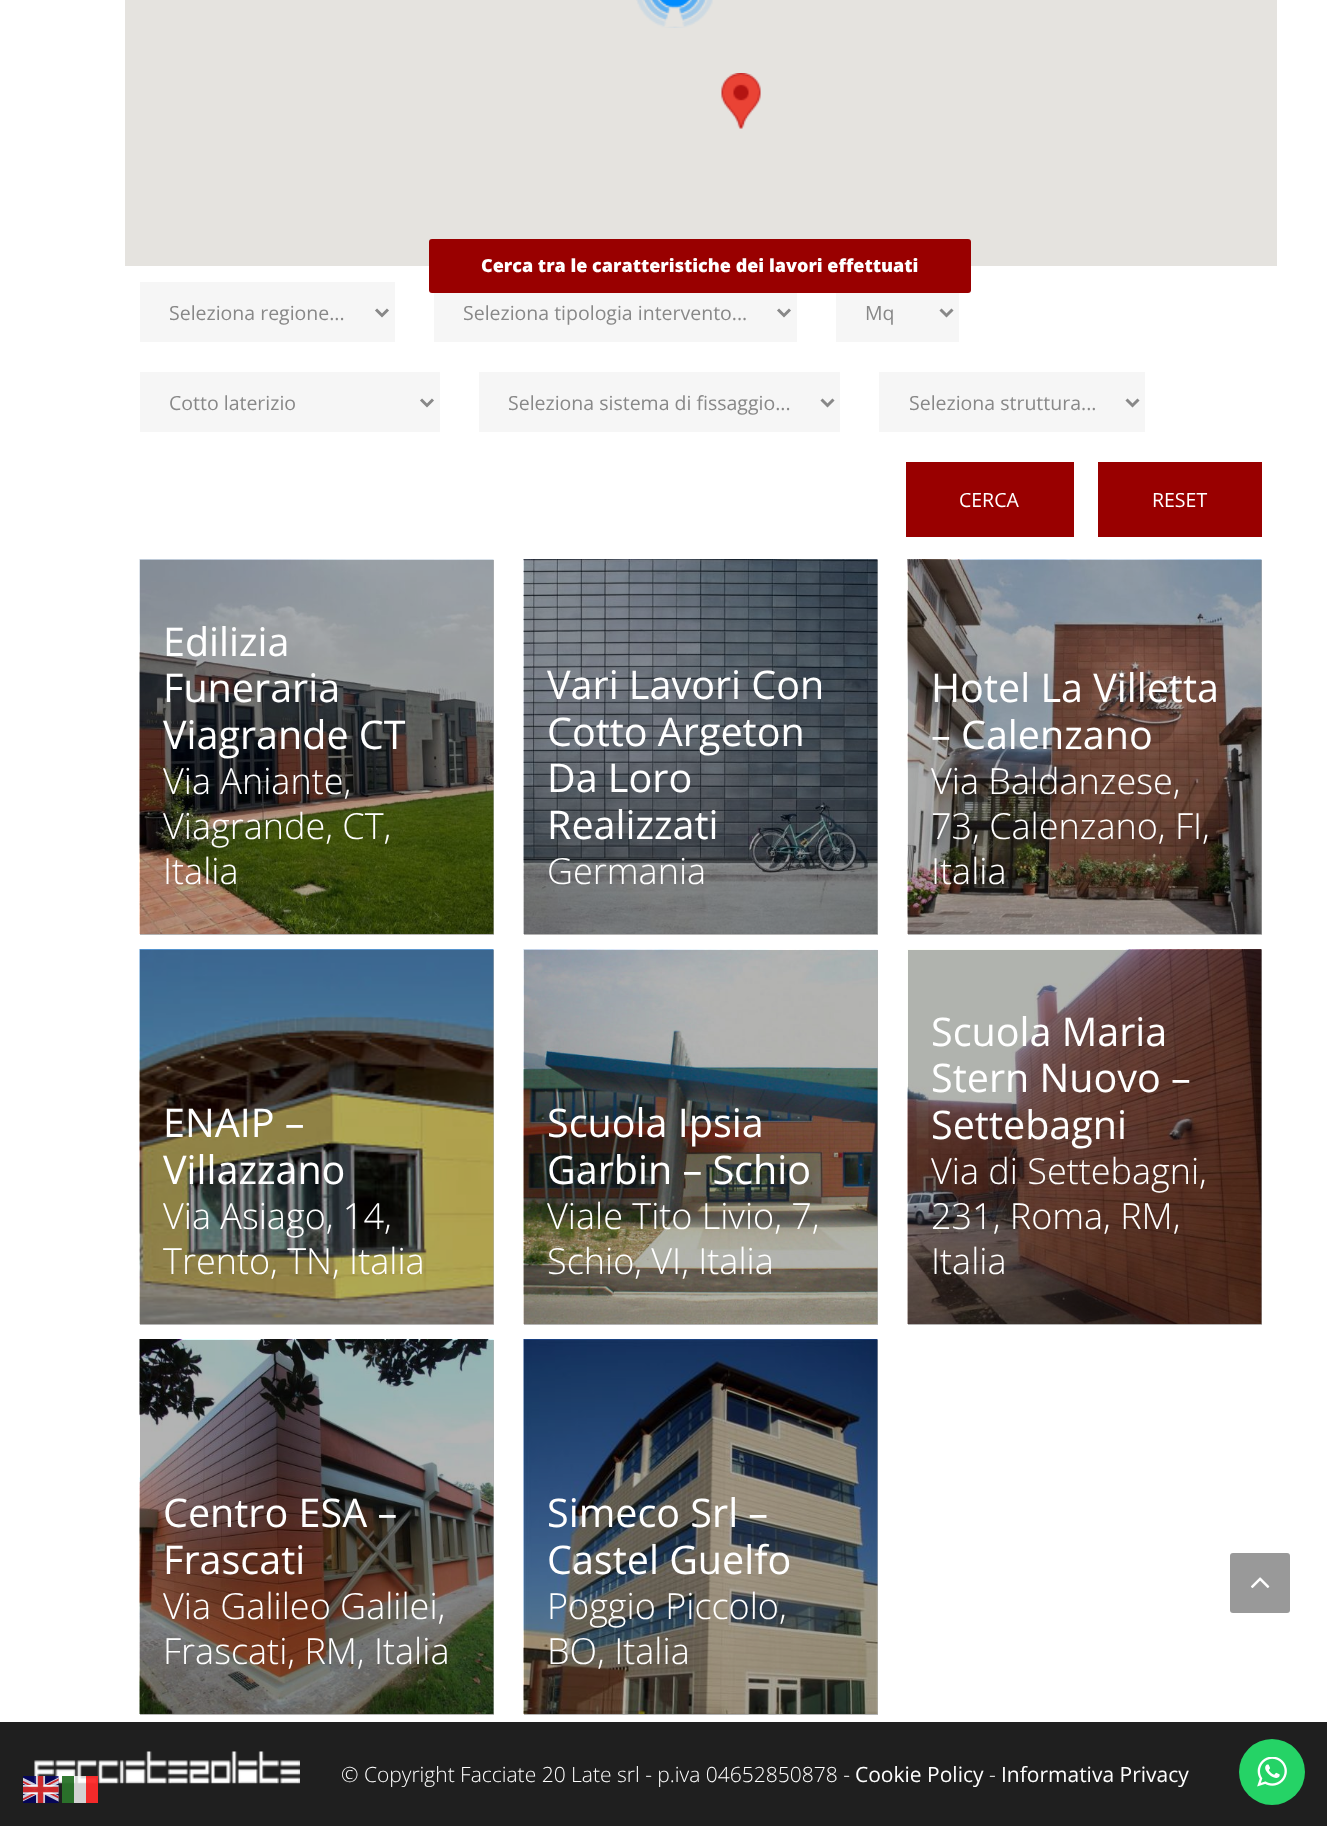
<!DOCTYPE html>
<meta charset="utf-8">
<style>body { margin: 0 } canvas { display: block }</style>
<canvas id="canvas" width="1327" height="1826"></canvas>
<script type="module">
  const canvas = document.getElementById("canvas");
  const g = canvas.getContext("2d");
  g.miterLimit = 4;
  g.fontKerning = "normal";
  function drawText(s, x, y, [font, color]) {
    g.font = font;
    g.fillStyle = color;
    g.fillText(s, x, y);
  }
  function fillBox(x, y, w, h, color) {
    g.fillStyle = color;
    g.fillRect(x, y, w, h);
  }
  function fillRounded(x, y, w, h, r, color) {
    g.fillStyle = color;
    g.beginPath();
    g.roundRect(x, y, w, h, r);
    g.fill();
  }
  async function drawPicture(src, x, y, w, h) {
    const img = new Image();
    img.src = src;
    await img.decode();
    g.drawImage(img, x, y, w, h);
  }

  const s1 = ["800 18px Open Sans", "#FFFFFF"];
  const s2 = ["19.5px Open Sans", "#888888"];
  const s3 = ["19.5px Open Sans", "#FFFFFF"];
  const s4 = ["39.5px Open Sans", "#FFFFFF"];
  const s5 = ["300 36px Open Sans", "#FFFFFF"];
  const s6 = ["300 21px Open Sans", "#FFFFFF"];
  const s7 = ["21px Open Sans", "#FFFFFF"];

  fillBox(0, 0, 1327, 1826, "#FFFFFF");
  fillBox(524, 1340, 354, 375, "#B3B3B3");
  fillBox(140, 1340, 354, 375, "#B3B3B3");
  fillBox(908, 950, 354, 375, "#B3B3B3");
  fillBox(524, 950, 354, 375, "#B3B3B3");
  fillBox(140, 950, 354, 375, "#B3B3B3");
  fillBox(908, 560, 354, 375, "#B3B3B3");
  fillBox(524, 560, 354, 375, "#B3B3B3");
  fillBox(140, 560, 354, 375, "#B3B3B3");
  fillBox(0, 1722, 1327, 104, "#1F1F1F");
  await drawPicture("pic13.png", 34, 1751, 266, 33);
  await drawPicture("pic1.png", 23, 1776, 36, 27);
  fillBox(62, 1776, 36, 27, "rgba(255, 255, 255, 0.8)");
  fillBox(62, 1776, 12, 27, "rgba(0, 87, 0, 0.8)");
  fillBox(86, 1776, 12, 27, "rgba(252, 0, 0, 0.8)");
  fillBox(125, 0, 1152, 266, "#E5E3DF");
  await drawPicture("pic2.png", 636, 0, 77, 28);
  await drawPicture("pic3.png", 721, 73, 40, 56);
  fillRounded(429, 239, 542, 54, 3, "#990000");
  drawText("Cerca tra le caratteristiche dei lavori effettuati", 481, 272, s1);
  fillBox(140, 282, 255, 60, "#F6F6F6");
  g.beginPath();
  g.moveTo(376, 309.5);
  g.lineTo(382, 315.5);
  g.lineTo(388, 309.5);
  g.strokeStyle = "#888888";
  g.lineWidth = 3;
  g.stroke();
  drawText("Seleziona regione...", 169, 320, s2);
  fillBox(434, 293, 363, 49, "#F6F6F6");
  g.beginPath();
  g.moveTo(778, 309.5);
  g.lineTo(784, 315.5);
  g.lineTo(790, 309.5);
  g.stroke();
  drawText("Seleziona tipologia intervento...", 463, 320, s2);
  fillBox(836, 293, 123, 49, "#F6F6F6");
  g.beginPath();
  g.moveTo(940.5, 309.5);
  g.lineTo(946.5, 315.5);
  g.lineTo(952.5, 309.5);
  g.stroke();
  drawText("Mq", 865, 320, s2);
  fillBox(140, 372, 300, 60, "#F6F6F6");
  g.beginPath();
  g.moveTo(421, 399.5);
  g.lineTo(427, 405.5);
  g.lineTo(433, 399.5);
  g.stroke();
  drawText("Cotto laterizio", 169, 410, s2);
  fillBox(479, 372, 361, 60, "#F6F6F6");
  g.beginPath();
  g.moveTo(821.5, 399.5);
  g.lineTo(827.5, 405.5);
  g.lineTo(833.5, 399.5);
  g.stroke();
  drawText("Seleziona sistema di fissaggio...", 508, 410, s2);
  fillBox(879, 372, 266, 60, "#F6F6F6");
  g.beginPath();
  g.moveTo(1126.5, 399.5);
  g.lineTo(1132.5, 405.5);
  g.lineTo(1138.5, 399.5);
  g.stroke();
  drawText("Seleziona struttura...", 909, 410, s2);
  fillBox(906, 462, 168, 75, "#990000");
  drawText("CERCA", 959, 507, s3);
  fillBox(1098, 462, 164, 75, "#990000");
  drawText("RESET", 1152, 507, s3);
  await drawPicture("pic4.png", 139, 559, 355, 375);
  drawText("Edilizia", 163, 656, s4);
  drawText("Funeraria", 163, 702, s4);
  drawText("Viagrande CT", 163, 749, s4);
  drawText("Via Aniante,", 163, 794, s5);
  drawText("Viagrande, CT,", 163, 839, s5);
  drawText("Italia", 163, 884, s5);
  await drawPicture("pic5.png", 523, 559, 355, 375);
  drawText("Vari Lavori Con", 547, 699, s4);
  drawText("Cotto Argeton", 547, 746, s4);
  drawText("Da Loro", 547, 792, s4);
  drawText("Realizzati", 547, 839, s4);
  drawText("Germania", 547, 884, s5);
  await drawPicture("pic6.png", 907, 559, 355, 375);
  drawText("Hotel La Villetta", 931, 702, s4);
  drawText("– Calenzano", 931, 749, s4);
  drawText("Via Baldanzese,", 931, 794, s5);
  drawText("73, Calenzano, FI,", 931, 839, s5);
  drawText("Italia", 931, 884, s5);
  await drawPicture("pic7.png", 139, 949, 355, 375);
  drawText("ENAIP –", 163, 1137, s4);
  drawText("Villazzano", 163, 1184, s4);
  drawText("Via Asiago, 14,", 163, 1229, s5);
  drawText("Trento, TN, Italia", 163, 1274, s5);
  await drawPicture("pic8.png", 523, 949, 355, 375);
  drawText("Scuola Ipsia", 547, 1137, s4);
  drawText("Garbin – Schio", 547, 1184, s4);
  drawText("Viale Tito Livio, 7,", 547, 1229, s5);
  drawText("Schio, VI, Italia", 547, 1274, s5);
  await drawPicture("pic9.png", 907, 949, 355, 375);
  drawText("Scuola Maria", 931, 1046, s4);
  drawText("Stern Nuovo –", 931, 1092, s4);
  drawText("Settebagni", 931, 1139, s4);
  drawText("Via di Settebagni,", 931, 1184, s5);
  drawText("231, Roma, RM,", 931, 1229, s5);
  drawText("Italia", 931, 1274, s5);
  await drawPicture("pic10.png", 139, 1339, 355, 375);
  drawText("Centro ESA –", 163, 1527, s4);
  drawText("Frascati", 163, 1574, s4);
  drawText("Via Galileo Galilei,", 163, 1619, s5);
  drawText("Frascati, RM, Italia", 163, 1664, s5);
  await drawPicture("pic11.png", 523, 1339, 355, 375);
  drawText("Simeco Srl –", 547, 1527, s4);
  drawText("Castel Guelfo", 547, 1574, s4);
  drawText("Poggio Piccolo,", 547, 1619, s5);
  drawText("BO, Italia", 547, 1664, s5);
  fillRounded(1230, 1553, 60, 60, 3, "#999999");
  await drawPicture("pic12.png", 1251, 1577, 19, 11);
  drawText("© Copyright Facciate 20 Late srl - p.iva 04652850878 -", 341, 1782, s6);
  drawText("Cookie Policy", 855, 1782, s7);
  drawText("-", 989, 1782, s6);
  drawText("Informativa Privacy", 1001, 1782, s7);
  g.fillStyle = "#25D366";
  g.beginPath();
  g.arc(1272, 1772, 33, 0, Math.PI * 2);
  g.fill();
  await drawPicture("pic14.png", 1257, 1757, 30, 30);
</script>
